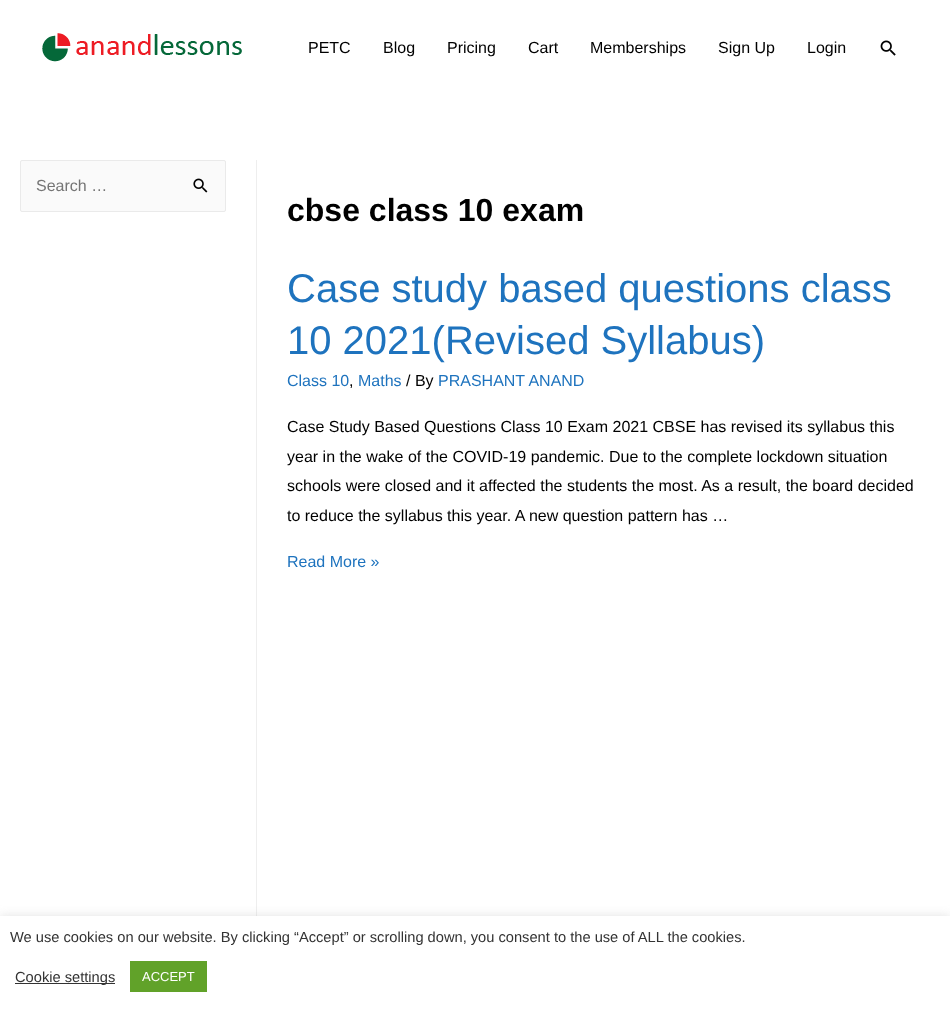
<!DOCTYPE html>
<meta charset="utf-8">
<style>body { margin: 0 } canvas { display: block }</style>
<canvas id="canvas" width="950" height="1009"></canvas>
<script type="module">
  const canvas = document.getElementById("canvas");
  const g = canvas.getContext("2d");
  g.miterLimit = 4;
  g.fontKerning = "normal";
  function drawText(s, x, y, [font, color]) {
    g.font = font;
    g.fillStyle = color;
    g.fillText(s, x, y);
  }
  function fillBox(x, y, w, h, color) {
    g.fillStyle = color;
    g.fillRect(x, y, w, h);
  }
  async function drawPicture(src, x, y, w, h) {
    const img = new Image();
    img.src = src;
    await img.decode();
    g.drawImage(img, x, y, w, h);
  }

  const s1 = ["16px Liberation Sans", "#000000"];
  const s2 = ["16px Liberation Sans", "#757575"];
  const s3 = ["bold 32px Liberation Sans", "#000000"];
  const s4 = ["40px Liberation Sans", "#1E73BE"];
  const s5 = ["16px Liberation Sans", "#1E73BE"];
  const s6 = ["14.67px Liberation Sans", "#333333"];
  const s7 = ["13px Liberation Sans", "#FFFFFF"];

  fillBox(0, 0, 950, 1009, "#FFFFFF");
  await drawPicture("pic1.png", 42, 33, 200, 29);
  drawText("PETC", 308, 53, s1);
  drawText("Blog", 383, 53, s1);
  drawText("Pricing", 447, 53, s1);
  drawText("Cart", 528, 53, s1);
  drawText("Memberships", 590, 53, s1);
  drawText("Sign Up", 718, 53, s1);
  drawText("Login", 807, 53, s1);
  await drawPicture("pic2.png", 880, 40, 16, 16);
  fillBox(256, 160, 1, 756, "#EEEEEE");
  g.fillStyle = "#FAFAFA";
  g.beginPath();
  g.roundRect(20.5, 160.5, 205, 51, 1.5);
  g.fill();
  g.strokeStyle = "#EAEAEA";
  g.stroke();
  drawText("Search …", 36, 191, s2);
  await drawPicture("pic3.png", 193, 178, 15, 15);
  drawText("cbse class 10 exam", 287, 221, s3);
  drawText("Case study based questions class", 287, 302, s4);
  drawText("10 2021(Revised Syllabus)", 287, 354, s4);
  drawText("Class 10", 287, 386, s5);
  drawText(",", 349, 386, s1);
  drawText("Maths", 358, 386, s5);
  drawText("/ By", 406, 386, s1);
  drawText("PRASHANT ANAND", 438, 386, s5);
  drawText("Case Study Based Questions Class 10 Exam 2021 CBSE has revised its syllabus this", 287, 432, s1);
  drawText("year in the wake of the COVID-19 pandemic. Due to the complete lockdown situation", 287, 462, s1);
  drawText("schools were closed and it affected the students the most. As a result, the board decided", 287, 491, s1);
  drawText("to reduce the syllabus this year. A new question pattern has …", 287, 521, s1);
  drawText("Read More »", 287, 567, s5);
  g.fillStyle = "rgba(172, 171, 171, 0.3)";
  g.filter = "blur(5px)";
  g.beginPath();
  g.rect(0, 915, 950, 93);
  g.fill();
  g.filter = "none";
  fillBox(0, 916, 950, 93, "#FFFFFF");
  drawText("We use cookies on our website. By clicking “Accept” or scrolling down, you consent to the use of ALL the cookies.", 10, 942, s6);
  fillBox(15, 983, 100, 1, "#333333");
  drawText("Cookie settings", 15, 982, s6);
  fillBox(130, 961, 77, 31, "#61A229");
  drawText("ACCEPT", 142, 981, s7);
</script>
